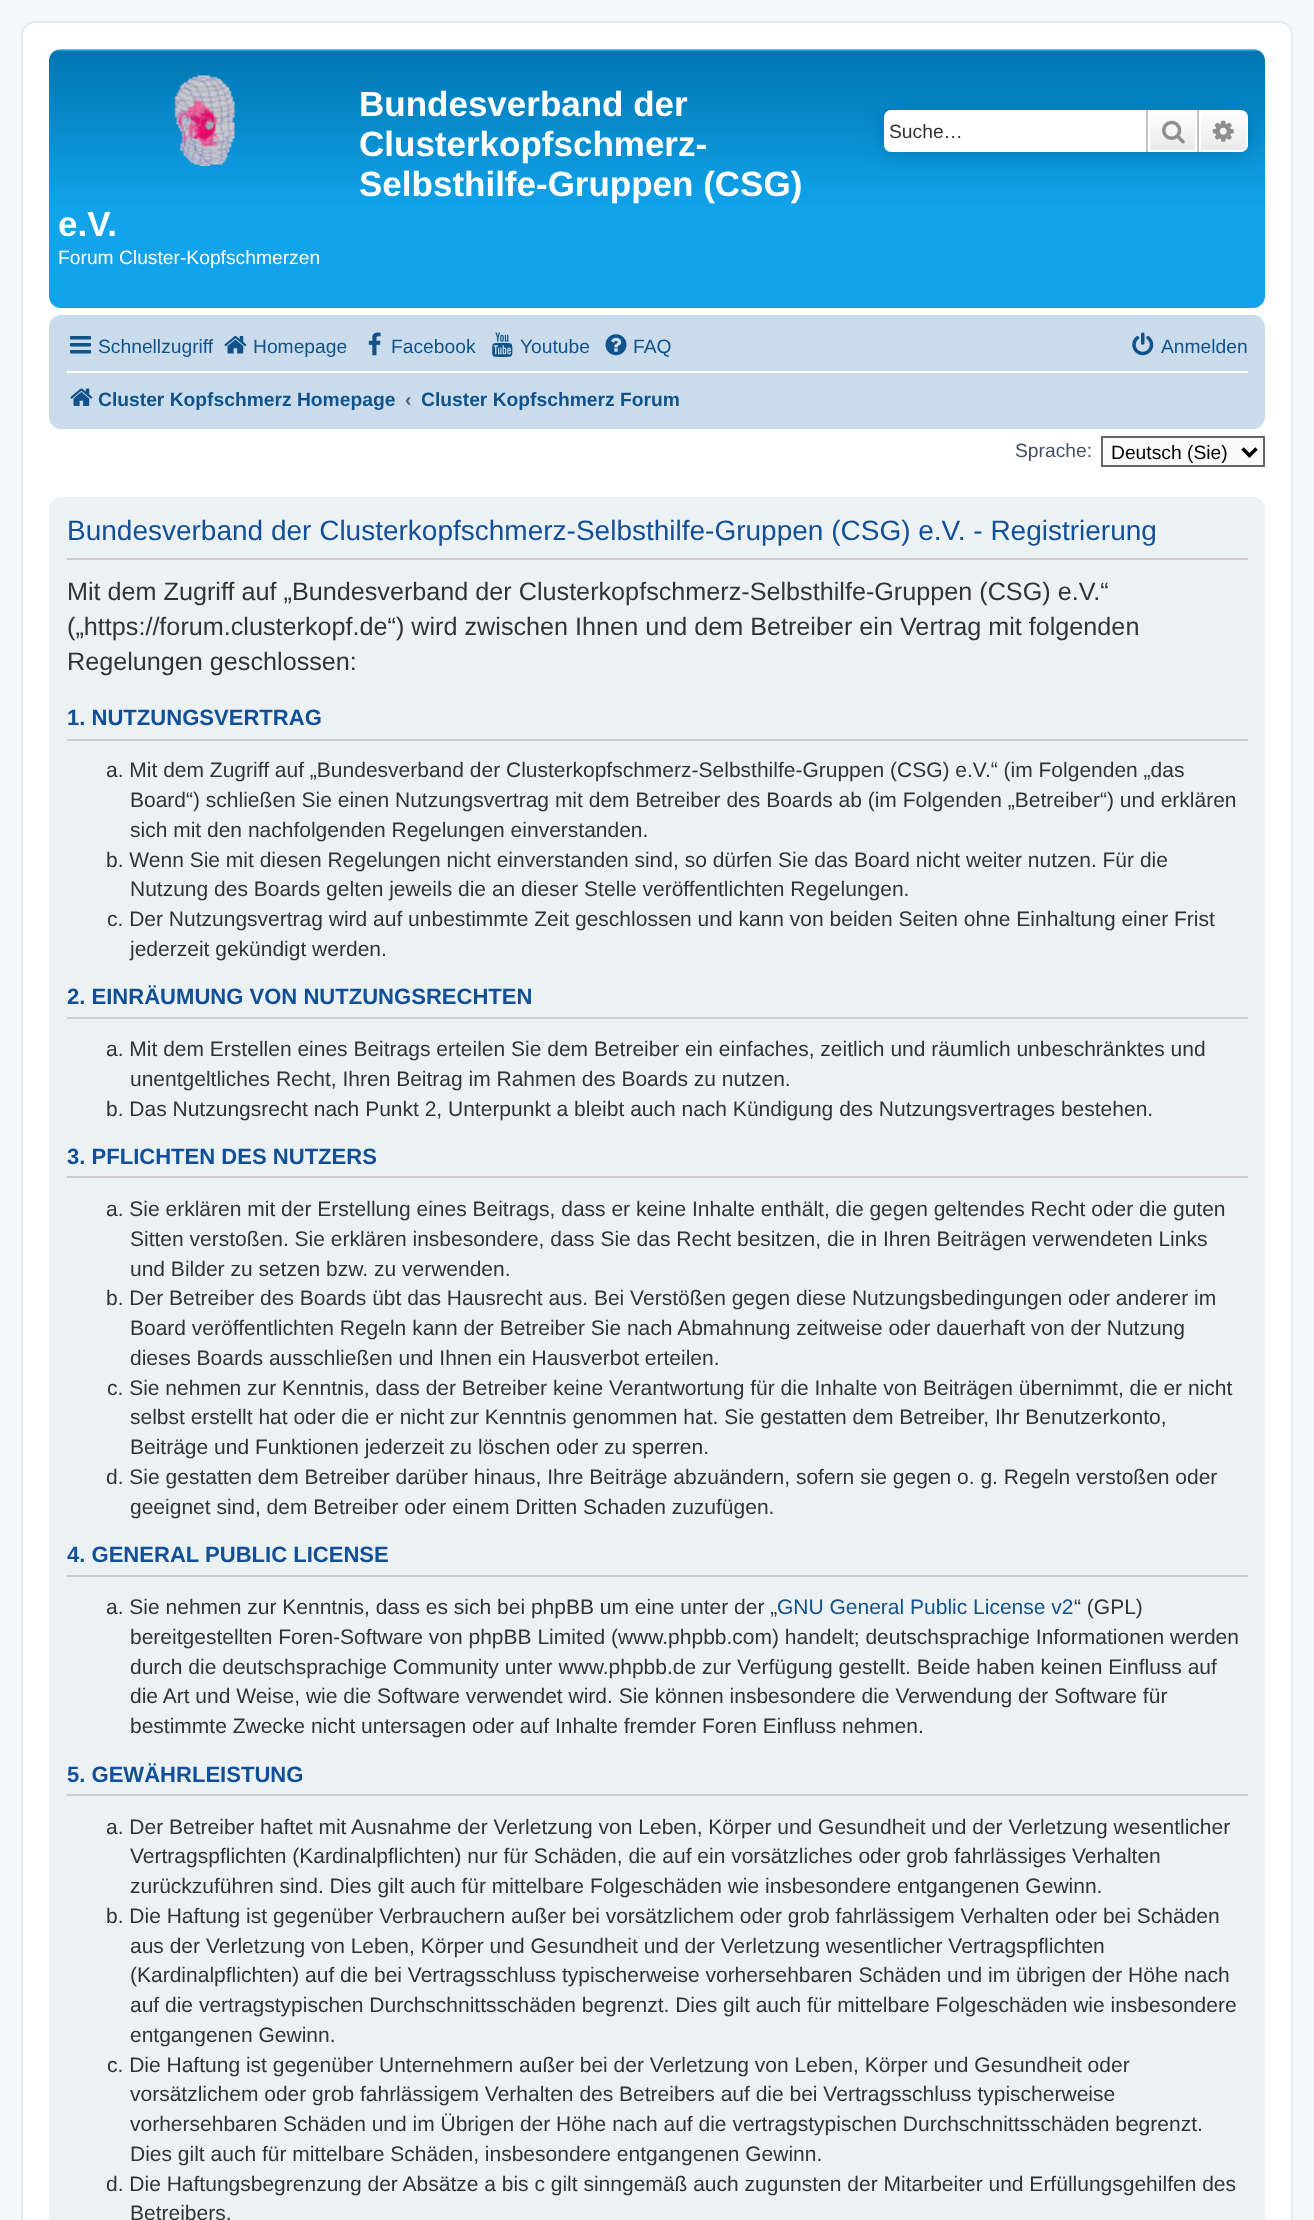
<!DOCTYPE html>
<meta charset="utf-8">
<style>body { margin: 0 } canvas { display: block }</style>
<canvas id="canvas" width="1314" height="2220"></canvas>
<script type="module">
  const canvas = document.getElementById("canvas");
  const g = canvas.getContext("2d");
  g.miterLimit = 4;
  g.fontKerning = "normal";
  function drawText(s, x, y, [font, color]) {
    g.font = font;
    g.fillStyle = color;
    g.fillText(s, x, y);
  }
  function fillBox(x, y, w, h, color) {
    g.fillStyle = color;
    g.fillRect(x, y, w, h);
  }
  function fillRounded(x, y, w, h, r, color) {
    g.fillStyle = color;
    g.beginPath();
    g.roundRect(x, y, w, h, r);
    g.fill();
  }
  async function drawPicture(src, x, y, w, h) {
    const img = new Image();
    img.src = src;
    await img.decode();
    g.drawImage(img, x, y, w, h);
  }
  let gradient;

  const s1 = ["bold 35px Liberation Sans", "#FFFFFF"];
  const s2 = ["19.25px Liberation Sans", "#FFFFFF"];
  const s3 = ["19.25px Liberation Sans", "#333333"];
  const s4 = ["19.25px Liberation Sans", "#105289"];
  const s5 = ["bold 19.25px Liberation Sans", "#105289"];
  const s6 = ["bold 19.25px Liberation Sans", "#536482"];
  const s7 = ["19.25px Liberation Sans", "#425067"];
  const s8 = ["19.25px Liberation Sans", "#000000"];
  const s9 = ["28px Liberation Sans", "#115098"];
  const s10 = ["25.2px Liberation Sans", "#333333"];
  const s11 = ["bold 22.05px Liberation Sans", "#115098"];
  const s12 = ["21px Liberation Sans", "#333333"];
  const s13 = ["21px Liberation Sans", "#105289"];

  fillBox(0, 0, 1314, 2220, "#F5F7FA");
  g.fillStyle = "#FFFFFF";
  g.beginPath();
  g.roundRect(22, 22, 1270, 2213, 13);
  g.fill();
  g.strokeStyle = "#E6E9ED";
  g.lineWidth = 2;
  g.stroke();
  gradient = g.createLinearGradient(657, 49, 657, 308);
  gradient.addColorStop(0, "#6ACEFF");
  gradient.addColorStop(0.01, "#0076B1");
  gradient.addColorStop(0.62, "#12A3EB");
  gradient.addColorStop(1, "#12A3EB");
  g.fillStyle = gradient;
  g.beginPath();
  g.roundRect(49, 49, 1216, 259, 12);
  g.fill();
  await drawPicture("pic1.png", 174, 75, 61, 91);
  drawText("Bundesverband der", 359, 116, s1);
  drawText("Clusterkopfschmerz-", 359, 156, s1);
  drawText("Selbsthilfe-Gruppen (CSG)", 359, 196, s1);
  drawText("e.V.", 58, 236, s1);
  drawText("Forum Cluster-Kopfschmerzen", 58, 264, s2);
  g.fillStyle = "#0075B0";
  g.filter = "blur(9px)";
  g.beginPath();
  g.roundRect(884, 110, 364, 42, 7);
  g.fill();
  g.filter = "none";
  g.fillStyle = "#FFFFFF";
  g.beginPath();
  g.roundRect(884, 110, 262, 42, [7, 0, 0, 7]);
  g.fill();
  drawText("Suche…", 889, 138, s3);
  gradient = g.createLinearGradient(1173, 110, 1173, 152);
  gradient.addColorStop(0, "#FFFFFF");
  gradient.addColorStop(1, "#E9E9E9");
  g.fillStyle = gradient;
  g.fillRect(1150, 112, 45, 38);
  g.strokeStyle = "#FFFFFF";
  g.strokeRect(1149, 111, 47, 40);
  fillBox(1197, 110, 2, 42, "#C7C3BF");
  fillBox(1146, 110, 2, 42, "#C7C3BF");
  await drawPicture("pic2.png", 1162, 120, 23, 24);
  gradient = g.createLinearGradient(1223, 110, 1223, 152);
  gradient.addColorStop(0, "#FFFFFF");
  gradient.addColorStop(1, "#E9E9E9");
  g.fillStyle = gradient;
  g.beginPath();
  g.roundRect(1200, 111, 47, 40, [0, 6, 6, 0]);
  g.fill();
  g.stroke();
  await drawPicture("pic3.png", 1212, 120, 22, 22);
  fillRounded(49, 315, 1216, 114, 12, "#CADCEB");
  await drawPicture("pic4.png", 70, 336, 21, 18);
  drawText("Schnellzugriff", 98, 353, s4);
  await drawPicture("pic5.png", 224, 336, 23, 18);
  drawText("Homepage", 253, 353, s4);
  await drawPicture("pic6.png", 368, 332, 13, 24);
  drawText("Facebook", 391, 353, s4);
  await drawPicture("pic7.png", 492, 332, 21, 25);
  drawText("Youtube", 520, 353, s4);
  await drawPicture("pic8.png", 605, 334, 22, 22);
  drawText("FAQ", 633, 353, s4);
  await drawPicture("pic9.png", 1132, 332, 22, 24);
  drawText("Anmelden", 1161, 353, s4);
  fillBox(67, 371, 1181, 2, "#FFFFFF");
  await drawPicture("pic10.png", 70, 388, 23, 18);
  drawText("Cluster Kopfschmerz Homepage", 98, 406, s5);
  drawText("‹", 405, 406, s6);
  g.save();
  g.beginPath();
  g.rect(422, 378, 259, 42);
  g.clip();
  drawText("Cluster Kopfschmerz Forum", 421, 406, s5);
  g.restore();
  drawText("Sprache:", 1015, 457, s7);
  g.fillStyle = "#FAFAFA";
  g.beginPath();
  g.rect(1102, 437, 162, 29);
  g.fill();
  g.strokeStyle = "#666666";
  g.stroke();
  g.beginPath();
  g.moveTo(1242.5, 448.5);
  g.lineTo(1249.5, 455.5);
  g.lineTo(1256.5, 448.5);
  g.strokeStyle = "#000000";
  g.lineWidth = 3.5;
  g.stroke();
  drawText("Deutsch (Sie)", 1111, 459, s8);
  fillRounded(49, 497, 1216, 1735, 12, "#ECF1F3");
  fillBox(67, 558, 1181, 2, "#CCCCCC");
  drawText("Bundesverband der Clusterkopfschmerz-Selbsthilfe-Gruppen (CSG) e.V. - Registrierung", 67, 540, s9);
  drawText("Mit dem Zugriff auf „Bundesverband der Clusterkopfschmerz-Selbsthilfe-Gruppen (CSG) e.V.“", 67, 600, s10);
  drawText("(„https://forum.clusterkopf.de“) wird zwischen Ihnen und dem Betreiber ein Vertrag mit folgenden", 67, 635, s10);
  drawText("Regelungen geschlossen:", 67, 670, s10);
  fillBox(67, 739, 1181, 2, "#CCCCCC");
  drawText("1. NUTZUNGSVERTRAG", 67, 725, s11);
  drawText("a. Mit dem Zugriff auf „Bundesverband der Clusterkopfschmerz-Selbsthilfe-Gruppen (CSG) e.V.“ (im Folgenden „das", 106, 777, s12);
  drawText("Board“) schließen Sie einen Nutzungsvertrag mit dem Betreiber des Boards ab (im Folgenden „Betreiber“) und erklären", 130, 807, s12);
  drawText("sich mit den nachfolgenden Regelungen einverstanden.", 130, 837, s12);
  drawText("b. Wenn Sie mit diesen Regelungen nicht einverstanden sind, so dürfen Sie das Board nicht weiter nutzen. Für die", 106, 867, s12);
  drawText("Nutzung des Boards gelten jeweils die an dieser Stelle veröffentlichten Regelungen.", 130, 896, s12);
  drawText("c. Der Nutzungsvertrag wird auf unbestimmte Zeit geschlossen und kann von beiden Seiten ohne Einhaltung einer Frist", 107, 926, s12);
  drawText("jederzeit gekündigt werden.", 130, 956, s12);
  fillBox(67, 1017, 1181, 2, "#CCCCCC");
  drawText("2. EINRÄUMUNG VON NUTZUNGSRECHTEN", 67, 1004, s11);
  drawText("a. Mit dem Erstellen eines Beitrags erteilen Sie dem Betreiber ein einfaches, zeitlich und räumlich unbeschränktes und", 106, 1056, s12);
  drawText("unentgeltliches Recht, Ihren Beitrag im Rahmen des Boards zu nutzen.", 130, 1086, s12);
  drawText("b. Das Nutzungsrecht nach Punkt 2, Unterpunkt a bleibt auch nach Kündigung des Nutzungsvertrages bestehen.", 106, 1116, s12);
  fillBox(67, 1176, 1181, 2, "#CCCCCC");
  drawText("3. PFLICHTEN DES NUTZERS", 67, 1164, s11);
  drawText("a. Sie erklären mit der Erstellung eines Beitrags, dass er keine Inhalte enthält, die gegen geltendes Recht oder die guten", 106, 1216, s12);
  drawText("Sitten verstoßen. Sie erklären insbesondere, dass Sie das Recht besitzen, die in Ihren Beiträgen verwendeten Links", 130, 1246, s12);
  drawText("und Bilder zu setzen bzw. zu verwenden.", 130, 1276, s12);
  drawText("b. Der Betreiber des Boards übt das Hausrecht aus. Bei Verstößen gegen diese Nutzungsbedingungen oder anderer im", 106, 1305, s12);
  drawText("Board veröffentlichten Regeln kann der Betreiber Sie nach Abmahnung zeitweise oder dauerhaft von der Nutzung", 130, 1335, s12);
  drawText("dieses Boards ausschließen und Ihnen ein Hausverbot erteilen.", 130, 1365, s12);
  drawText("c. Sie nehmen zur Kenntnis, dass der Betreiber keine Verantwortung für die Inhalte von Beiträgen übernimmt, die er nicht", 107, 1395, s12);
  drawText("selbst erstellt hat oder die er nicht zur Kenntnis genommen hat. Sie gestatten dem Betreiber, Ihr Benutzerkonto,", 130, 1424, s12);
  drawText("Beiträge und Funktionen jederzeit zu löschen oder zu sperren.", 130, 1454, s12);
  drawText("d. Sie gestatten dem Betreiber darüber hinaus, Ihre Beiträge abzuändern, sofern sie gegen o. g. Regeln verstoßen oder", 106, 1484, s12);
  drawText("geeignet sind, dem Betreiber oder einem Dritten Schaden zuzufügen.", 130, 1514, s12);
  fillBox(67, 1575, 1181, 2, "#CCCCCC");
  g.save();
  g.beginPath();
  g.rect(67, 506, 1181, 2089);
  g.clip();
  drawText("4. GENERAL PUBLIC LICENSE", 67, 1562, s11);
  g.restore();
  drawText("a. Sie nehmen zur Kenntnis, dass es sich bei phpBB um eine unter der „", 106, 1614, s12);
  drawText("GNU General Public License v2", 777, 1614, s13);
  drawText("“ (GPL)", 1074, 1614, s12);
  drawText("bereitgestellten Foren-Software von phpBB Limited (www.phpbb.com) handelt; deutschsprachige Informationen werden", 130, 1644, s12);
  drawText("durch die deutschsprachige Community unter www.phpbb.de zur Verfügung gestellt. Beide haben keinen Einfluss auf", 130, 1674, s12);
  drawText("die Art und Weise, wie die Software verwendet wird. Sie können insbesondere die Verwendung der Software für", 130, 1703, s12);
  drawText("bestimmte Zwecke nicht untersagen oder auf Inhalte fremder Foren Einfluss nehmen.", 130, 1733, s12);
  fillBox(67, 1794, 1181, 2, "#CCCCCC");
  drawText("5. GEWÄHRLEISTUNG", 67, 1782, s11);
  drawText("a. Der Betreiber haftet mit Ausnahme der Verletzung von Leben, Körper und Gesundheit und der Verletzung wesentlicher", 106, 1834, s12);
  drawText("Vertragspflichten (Kardinalpflichten) nur für Schäden, die auf ein vorsätzliches oder grob fahrlässiges Verhalten", 130, 1863, s12);
  drawText("zurückzuführen sind. Dies gilt auch für mittelbare Folgeschäden wie insbesondere entgangenen Gewinn.", 130, 1893, s12);
  drawText("b. Die Haftung ist gegenüber Verbrauchern außer bei vorsätzlichem oder grob fahrlässigem Verhalten oder bei Schäden", 106, 1923, s12);
  drawText("aus der Verletzung von Leben, Körper und Gesundheit und der Verletzung wesentlicher Vertragspflichten", 130, 1953, s12);
  drawText("(Kardinalpflichten) auf die bei Vertragsschluss typischerweise vorhersehbaren Schäden und im übrigen der Höhe nach", 130, 1982, s12);
  drawText("auf die vertragstypischen Durchschnittsschäden begrenzt. Dies gilt auch für mittelbare Folgeschäden wie insbesondere", 130, 2012, s12);
  drawText("entgangenen Gewinn.", 130, 2042, s12);
  drawText("c. Die Haftung ist gegenüber Unternehmern außer bei der Verletzung von Leben, Körper und Gesundheit oder", 107, 2072, s12);
  drawText("vorsätzlichem oder grob fahrlässigem Verhalten des Betreibers auf die bei Vertragsschluss typischerweise", 130, 2101, s12);
  drawText("vorhersehbaren Schäden und im Übrigen der Höhe nach auf die vertragstypischen Durchschnittsschäden begrenzt.", 130, 2131, s12);
  drawText("Dies gilt auch für mittelbare Schäden, insbesondere entgangenen Gewinn.", 130, 2161, s12);
  drawText("d. Die Haftungsbegrenzung der Absätze a bis c gilt sinngemäß auch zugunsten der Mitarbeiter und Erfüllungsgehilfen des", 106, 2191, s12);
  drawText("Betreibers.", 130, 2220, s12);
</script>
